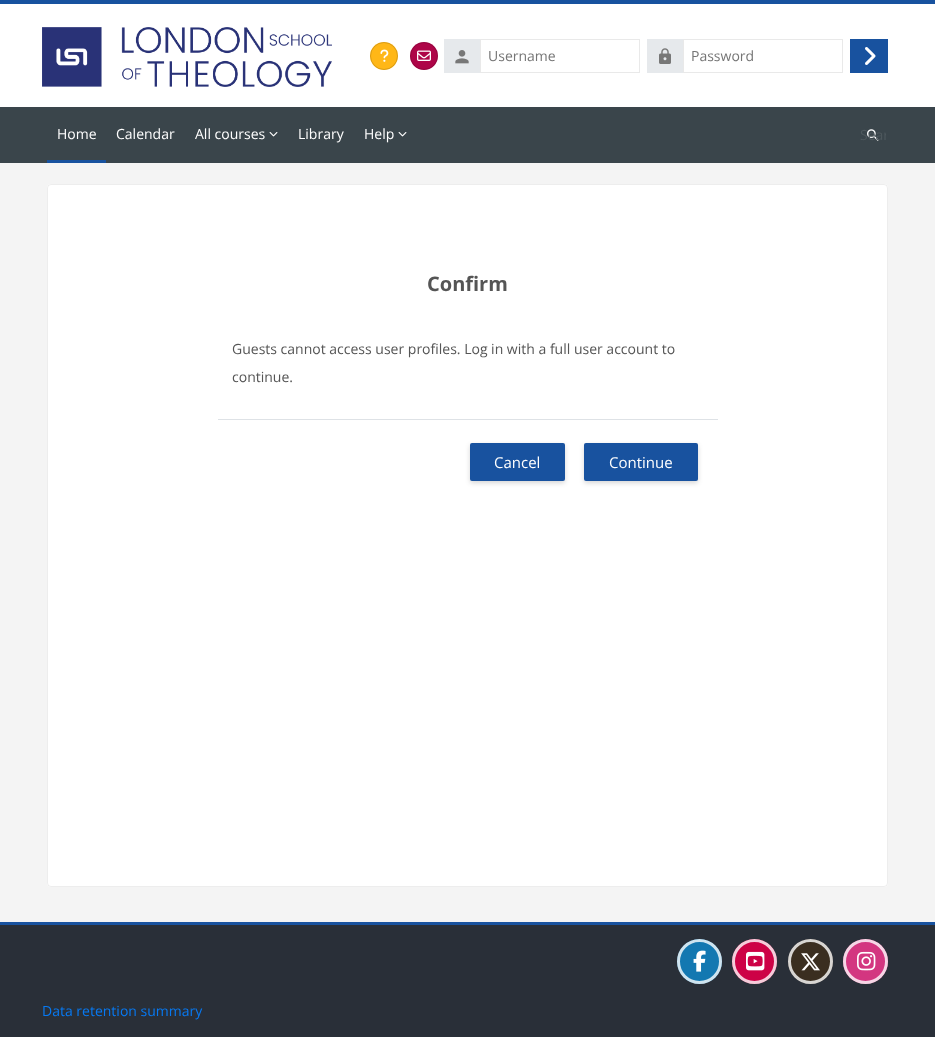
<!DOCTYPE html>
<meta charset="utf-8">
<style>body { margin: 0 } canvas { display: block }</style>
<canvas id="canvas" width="935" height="1037"></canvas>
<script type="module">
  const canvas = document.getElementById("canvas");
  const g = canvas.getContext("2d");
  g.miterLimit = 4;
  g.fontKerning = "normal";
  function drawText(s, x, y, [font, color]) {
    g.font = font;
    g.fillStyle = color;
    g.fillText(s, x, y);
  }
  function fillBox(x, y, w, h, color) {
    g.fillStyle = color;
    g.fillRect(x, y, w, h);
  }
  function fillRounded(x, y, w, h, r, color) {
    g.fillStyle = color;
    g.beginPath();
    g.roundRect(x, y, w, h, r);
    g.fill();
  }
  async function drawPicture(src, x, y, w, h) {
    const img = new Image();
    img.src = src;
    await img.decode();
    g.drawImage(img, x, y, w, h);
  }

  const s1 = ["14px Open Sans", "#757575"];
  const s2 = ["14px Open Sans", "#FFFFFF"];
  const s3 = ["14px Open Sans", "#4E585D"];
  const s4 = ["bold 20px Open Sans", "#555555"];
  const s5 = ["14px Open Sans", "#555555"];
  const s6 = ["15px Open Sans", "#FFFFFF"];
  const s7 = ["14px Open Sans", "#0779F2"];

  fillBox(0, 0, 935, 1037, "#F4F4F4");
  fillBox(0, 0, 935, 4, "#18529F");
  fillBox(0, 4, 935, 103, "#FFFFFF");
  await drawPicture("pic1.png", 42, 27, 290, 60);
  g.fillStyle = "#FFB717";
  g.beginPath();
  g.arc(384, 56, 14, 0, Math.PI * 2);
  g.fill();
  g.beginPath();
  g.arc(384, 56, 13.5, 0, Math.PI * 2);
  g.strokeStyle = "rgba(0, 0, 0, 0.15)";
  g.stroke();
  await drawPicture("pic2.png", 380, 49, 9, 13);
  g.fillStyle = "#AE0548";
  g.beginPath();
  g.arc(424, 56, 14, 0, Math.PI * 2);
  g.fill();
  g.beginPath();
  g.arc(424, 56, 13.5, 0, Math.PI * 2);
  g.stroke();
  await drawPicture("pic3.png", 417, 50, 14, 11);
  fillBox(444, 39, 36, 34, "#E6E9EC");
  await drawPicture("pic4.png", 455, 50, 14, 14);
  g.strokeStyle = "#E9E9E9";
  g.strokeRect(480.5, 39.5, 159, 33);
  drawText("Username", 488, 61, s1);
  fillBox(647, 39, 36, 34, "#E6E9EC");
  await drawPicture("pic5.png", 659, 48, 12, 16);
  g.strokeRect(683.5, 39.5, 159, 33);
  drawText("Password", 691, 61, s1);
  fillBox(850, 39, 38, 34, "#18529F");
  await drawPicture("pic6.png", 865, 47, 11, 18);
  fillBox(0, 107, 935, 56, "#3A454B");
  fillBox(47, 160, 59, 3, "#18529F");
  drawText("Home", 57, 139, s2);
  drawText("Calendar", 116, 139, s2);
  drawText("All courses", 195, 139, s2);
  await drawPicture("pic7.png", 269, 132, 9, 5);
  drawText("Library", 298, 139, s2);
  drawText("Help", 364, 139, s2);
  await drawPicture("pic7.png", 398, 132, 9, 5);
  await drawPicture("pic8.png", 867, 129, 12, 12);
  g.save();
  g.beginPath();
  g.rect(860, 125, 26, 19);
  g.clip();
  drawText("Sear", 860, 140, s3);
  g.restore();
  fillRounded(47, 184, 841, 703, 4, "#FFFFFF");
  g.beginPath();
  g.roundRect(47.5, 184.5, 840, 702, 3.5);
  g.strokeStyle = "rgba(0, 0, 0, 0.07)";
  g.stroke();
  drawText("Confirm", 427, 291, s4);
  drawText("Guests cannot access user profiles. Log in with a full user account to", 232, 354, s5);
  drawText("continue.", 232, 382, s5);
  fillBox(218, 419, 500, 1, "#DEE2E6");
  g.fillStyle = "rgba(0, 0, 0, 0.16)";
  g.filter = "blur(2.5px)";
  g.beginPath();
  g.roundRect(470, 445, 95, 38, 2);
  g.fill();
  g.filter = "none";
  fillRounded(470, 443, 95, 38, 2, "#18529F");
  drawText("Cancel", 494, 468, s6);
  g.fillStyle = "rgba(0, 0, 0, 0.16)";
  g.filter = "blur(2.5px)";
  g.beginPath();
  g.roundRect(584, 445, 114, 38, 2);
  g.fill();
  g.filter = "none";
  fillRounded(584, 443, 114, 38, 2, "#18529F");
  drawText("Continue", 609, 468, s6);
  fillBox(0, 922, 935, 3, "#18529F");
  fillBox(0, 925, 935, 112, "#292F38");
  g.fillStyle = "#1378B1";
  g.beginPath();
  g.arc(699.5, 961.5, 22.5, 0, Math.PI * 2);
  g.fill();
  g.beginPath();
  g.arc(699.5, 961.5, 21, 0, Math.PI * 2);
  g.strokeStyle = "rgba(255, 255, 255, 0.8)";
  g.lineWidth = 3;
  g.stroke();
  await drawPicture("pic9.png", 693, 950, 13, 22);
  g.fillStyle = "#CD0246";
  g.beginPath();
  g.arc(754.5, 961.5, 22.5, 0, Math.PI * 2);
  g.fill();
  g.beginPath();
  g.arc(754.5, 961.5, 21, 0, Math.PI * 2);
  g.stroke();
  await drawPicture("pic10.png", 746, 951, 19, 20);
  g.fillStyle = "#3A2E20";
  g.beginPath();
  g.arc(810.5, 961.5, 22.5, 0, Math.PI * 2);
  g.fill();
  g.beginPath();
  g.arc(810.5, 961.5, 21, 0, Math.PI * 2);
  g.stroke();
  await drawPicture("pic11.png", 801, 953, 19, 18);
  g.fillStyle = "#D33680";
  g.beginPath();
  g.arc(865.5, 961.5, 22.5, 0, Math.PI * 2);
  g.fill();
  g.beginPath();
  g.arc(865.5, 961.5, 21, 0, Math.PI * 2);
  g.stroke();
  await drawPicture("pic12.png", 857, 951, 19, 20);
  drawText("Data retention summary", 42, 1016, s7);
</script>
